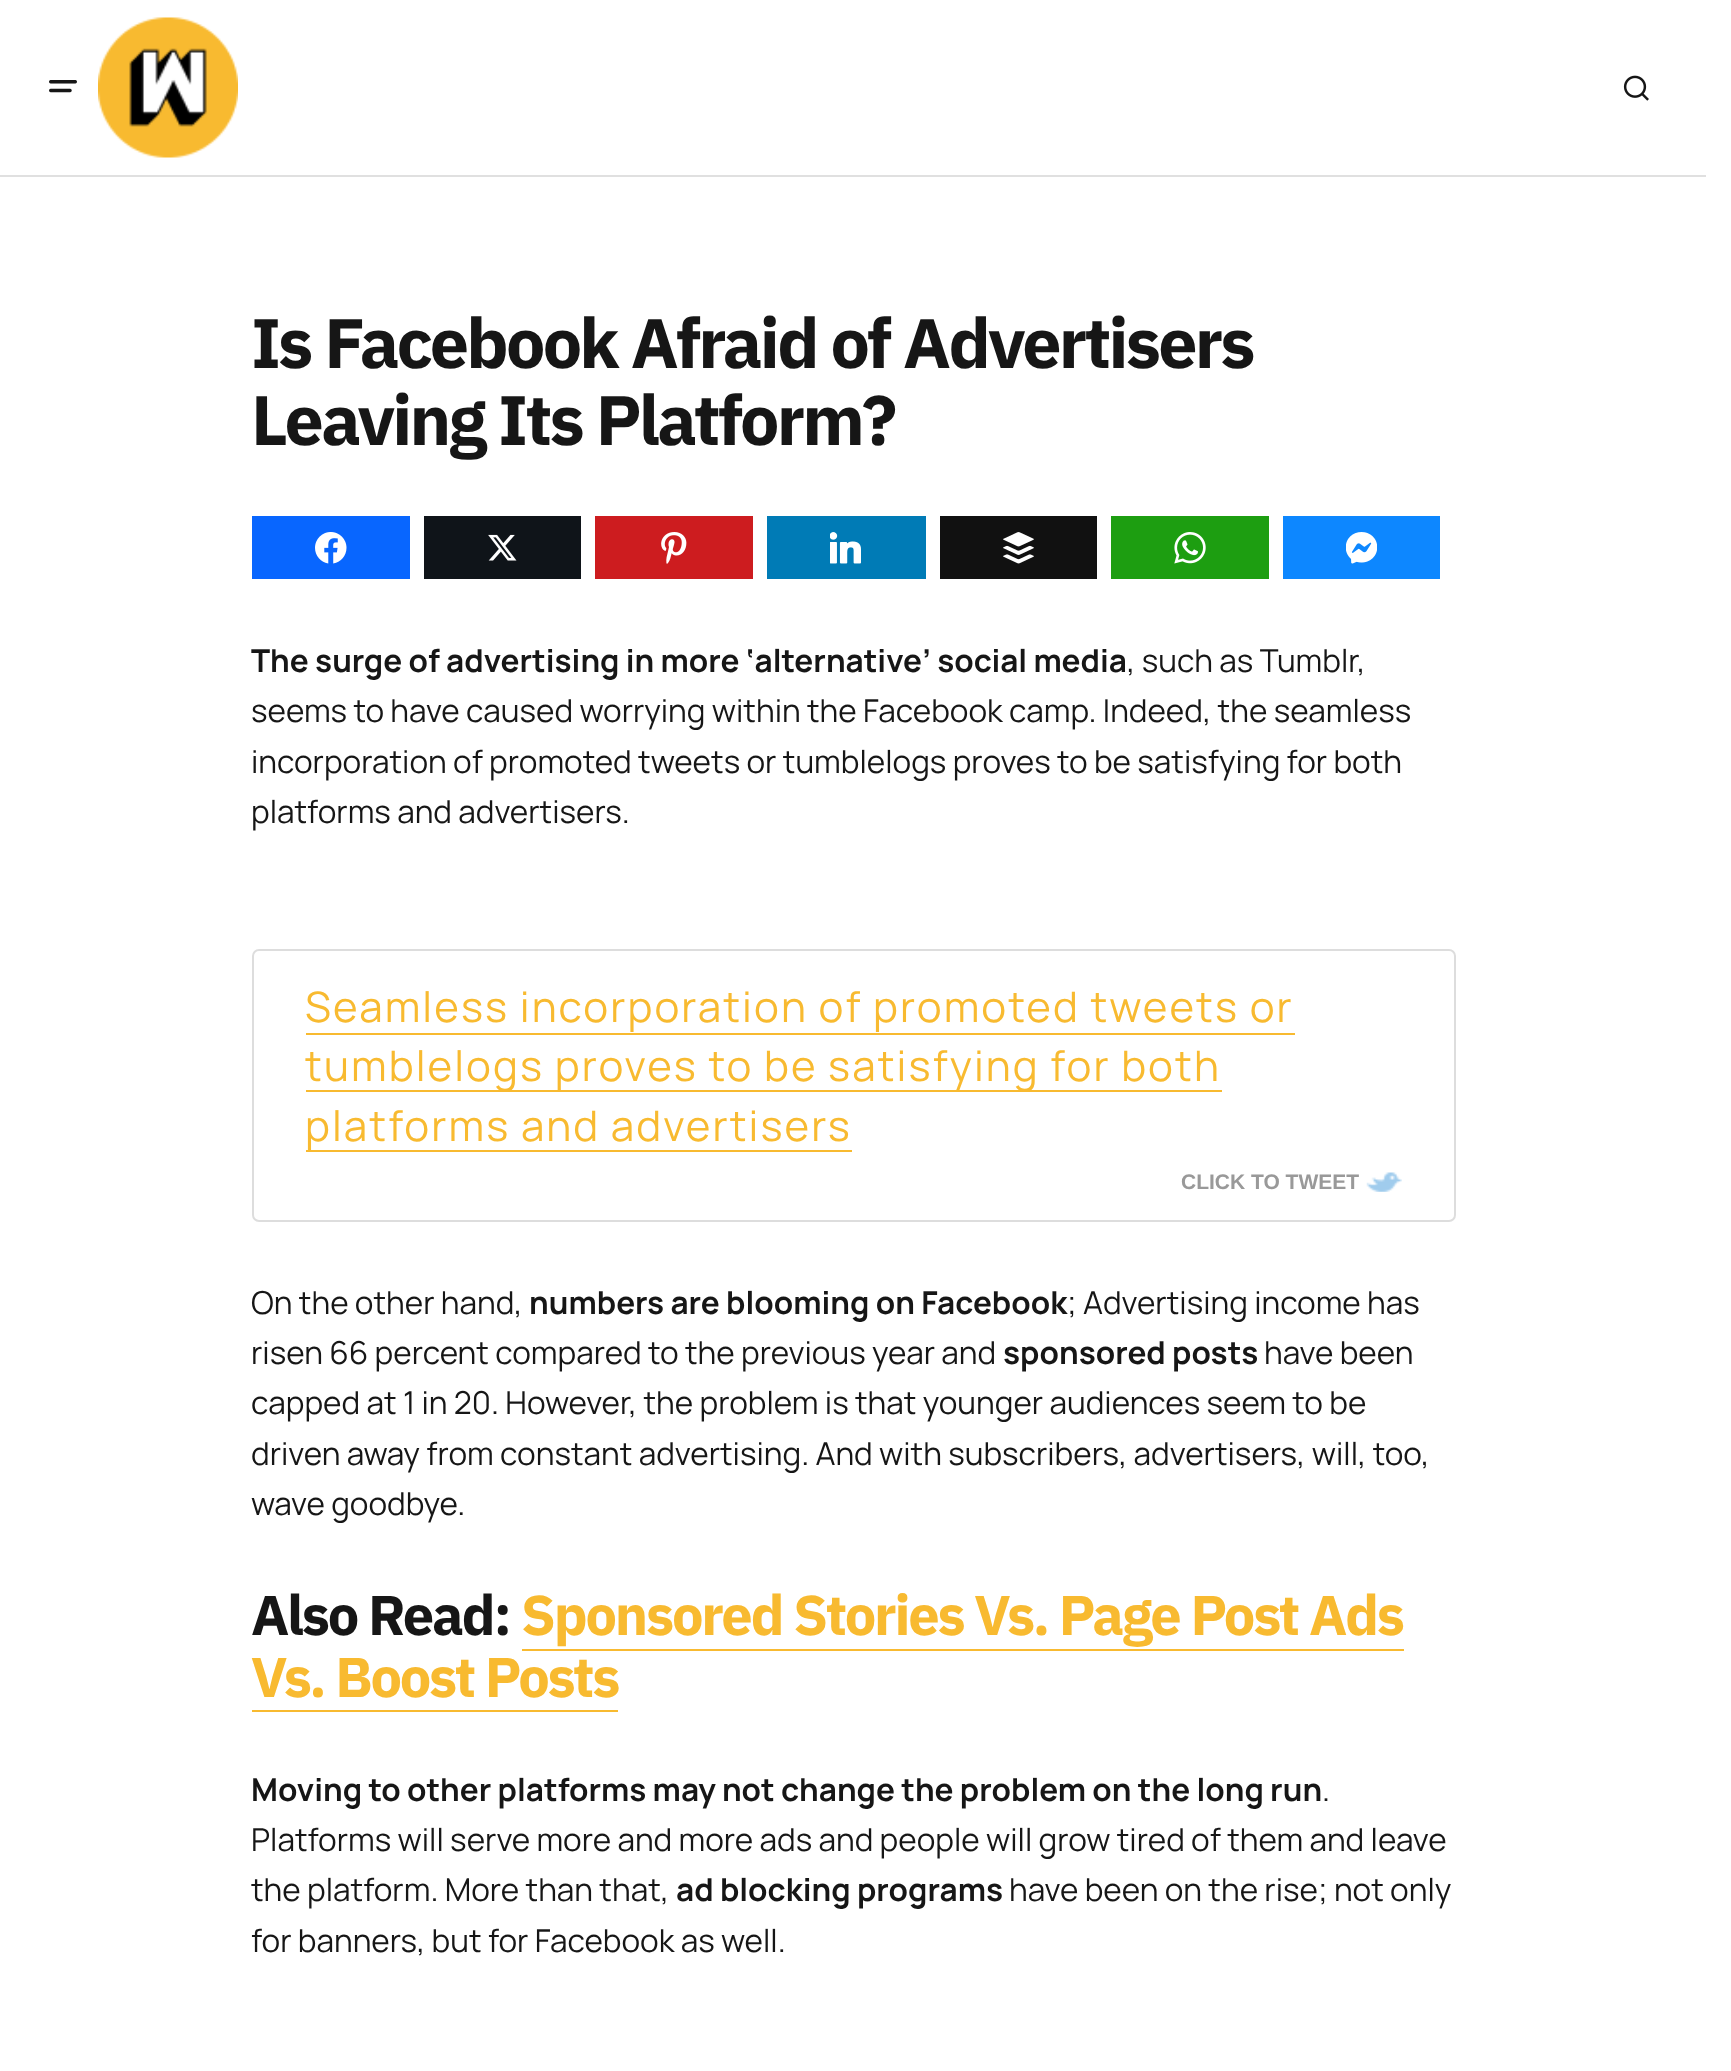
<!DOCTYPE html>
<meta charset="utf-8">
<style>body { margin: 0 } canvas { display: block }</style>
<canvas id="canvas" width="1731" height="2071"></canvas>
<img id="img1" src="images/1.png" hidden>
<img id="img2" src="images/2.png" hidden>
<img id="img3" src="images/3.png" hidden>
<img id="img4" src="images/4.png" hidden>
<img id="img5" src="images/5.png" hidden>
<img id="img6" src="images/6.png" hidden>
<img id="img7" src="images/7.png" hidden>
<img id="img8" src="images/8.png" hidden>
<img id="img9" src="images/9.png" hidden>
<img id="img10" src="images/10.png" hidden>
<img id="img11" src="images/11.png" hidden>
<script>
window.onload = function () {
    const canvas = document.getElementById('canvas');
    const context = canvas.getContext('2d');
    context.miterLimit = 4;
    context.fontKerning = 'normal';

    context.fillStyle = 'rgb(255, 255, 255)';
    context.fillRect(0, 0, 1731, 2071);
    context.drawImage(document.getElementById('img1'), 49, 80, 28, 13);
    context.drawImage(document.getElementById('img2'), 98, 17, 140, 141);
    context.drawImage(document.getElementById('img3'), 1623, 75, 26, 26);
    context.fillStyle = 'rgb(224, 224, 224)';
    context.fillRect(0, 175, 1706, 2);
    context.fillStyle = 'rgb(8, 102, 255)';
    context.fillRect(252, 516, 158, 63);
    context.drawImage(document.getElementById('img4'), 315, 532, 32, 32);
    context.fillStyle = 'rgb(15, 20, 25)';
    context.fillRect(424, 516, 157, 63);
    context.drawImage(document.getElementById('img5'), 488, 534, 29, 27);
    context.fillStyle = 'rgb(205, 28, 31)';
    context.fillRect(595, 516, 158, 63);
    context.drawImage(document.getElementById('img6'), 661, 532, 26, 32);
    context.fillStyle = 'rgb(0, 123, 182)';
    context.fillRect(767, 516, 159, 63);
    context.drawImage(document.getElementById('img7'), 830, 532, 31, 32);
    context.fillStyle = 'rgb(17, 17, 17)';
    context.fillRect(940, 516, 157, 63);
    context.drawImage(document.getElementById('img8'), 1003, 532, 31, 32);
    context.fillStyle = 'rgb(29, 158, 17)';
    context.fillRect(1111, 516, 158, 63);
    context.drawImage(document.getElementById('img9'), 1174, 532, 32, 32);
    context.fillStyle = 'rgb(13, 135, 255)';
    context.fillRect(1283, 516, 157, 63);
    context.drawImage(document.getElementById('img10'), 1346, 532, 31, 32);
    context.beginPath();
    context.roundRect(253, 950, 1202, 271, 6);
    context.strokeStyle = 'rgb(221, 221, 221)';
    context.lineWidth = 2;
    context.stroke();
    context.fillStyle = 'rgb(248, 186, 48)';
    context.fillRect(306, 1033, 989, 2);
    context.fillRect(306, 1090, 916, 2);
    context.fillRect(306, 1150, 546, 2);
    context.drawImage(document.getElementById('img11'), 1366, 1172, 36, 20);
    context.fillRect(522, 1649, 882, 2);
    context.fillRect(252, 1710, 366, 2);
    context.letterSpacing = '-2.8px';
    context.font = 'bold 70px IBM Plex Sans';
    context.fillStyle = 'rgb(22, 22, 22)';
    context.fillText('Is Facebook Afraid of Advertisers', 251, 368);
    context.fillText('Leaving Its Platform?', 251, 445);
    context.letterSpacing = '0px';
    context.font = 'bold 31.5px Manrope';
    context.fillText('The surge of advertising in more ‘alternative’ social media', 251, 672);
    context.font = '31.5px Manrope';
    context.fillText(', such as Tumblr,', 1127, 672);
    context.fillText('seems to have caused worrying within the Facebook camp. Indeed, the seamless', 251, 722);
    context.fillText('incorporation of promoted tweets or tumblelogs proves to be satisfying for both', 251, 773);
    context.fillText('platforms and advertisers.', 251, 823);
    context.letterSpacing = '2.1px';
    context.font = '42px Manrope';
    context.fillStyle = 'rgb(248, 186, 48)';
    context.fillText('Seamless incorporation of promoted tweets or', 305, 1022);
    context.fillText('tumblelogs proves to be satisfying for both', 305, 1081);
    context.fillText('platforms and advertisers', 305, 1141);
    context.letterSpacing = '0px';
    context.font = 'bold 21px Liberation Sans';
    context.fillStyle = 'rgb(153, 153, 153)';
    context.fillText('CLICK TO TWEET', 1181, 1189);
    context.font = '31.5px Manrope';
    context.fillStyle = 'rgb(22, 22, 22)';
    context.fillText('On the other hand,', 251, 1314);
    context.font = 'bold 31.5px Manrope';
    context.fillText('numbers are blooming on Facebook', 529, 1314);
    context.font = '31.5px Manrope';
    context.fillText('; Advertising income has', 1067, 1314);
    context.fillText('risen 66 percent compared to the previous year and', 251, 1364);
    context.font = 'bold 31.5px Manrope';
    context.fillText('sponsored posts', 1003, 1364);
    context.font = '31.5px Manrope';
    context.fillText('have been', 1264, 1364);
    context.fillText('capped at 1 in 20. However, the problem is that younger audiences seem to be', 251, 1414);
    context.fillText('driven away from constant advertising. And with subscribers, advertisers, will, too,', 251, 1465);
    context.fillText('wave goodbye.', 251, 1515);
    context.letterSpacing = '-2.25px';
    context.font = 'bold 56px IBM Plex Sans';
    context.fillText('Also Read:', 251, 1635);
    context.fillStyle = 'rgb(248, 186, 48)';
    context.fillText('Sponsored Stories Vs. Page Post Ads', 521, 1635);
    context.fillText('Vs. Boost Posts', 251, 1697);
    context.letterSpacing = '0px';
    context.font = 'bold 31.5px Manrope';
    context.fillStyle = 'rgb(22, 22, 22)';
    context.fillText('Moving to other platforms may not change the problem on the long run', 251, 1801);
    context.font = '31.5px Manrope';
    context.fillText('.', 1322, 1801);
    context.fillText('Platforms will serve more and more ads and people will grow tired of them and leave', 251, 1851);
    context.fillText('the platform. More than that,', 251, 1901);
    context.font = 'bold 31.5px Manrope';
    context.fillText('ad blocking programs', 676, 1901);
    context.font = '31.5px Manrope';
    context.fillText('have been on the rise; not only', 1009, 1901);
    context.fillText('for banners, but for Facebook as well.', 251, 1952);
};
</script>
